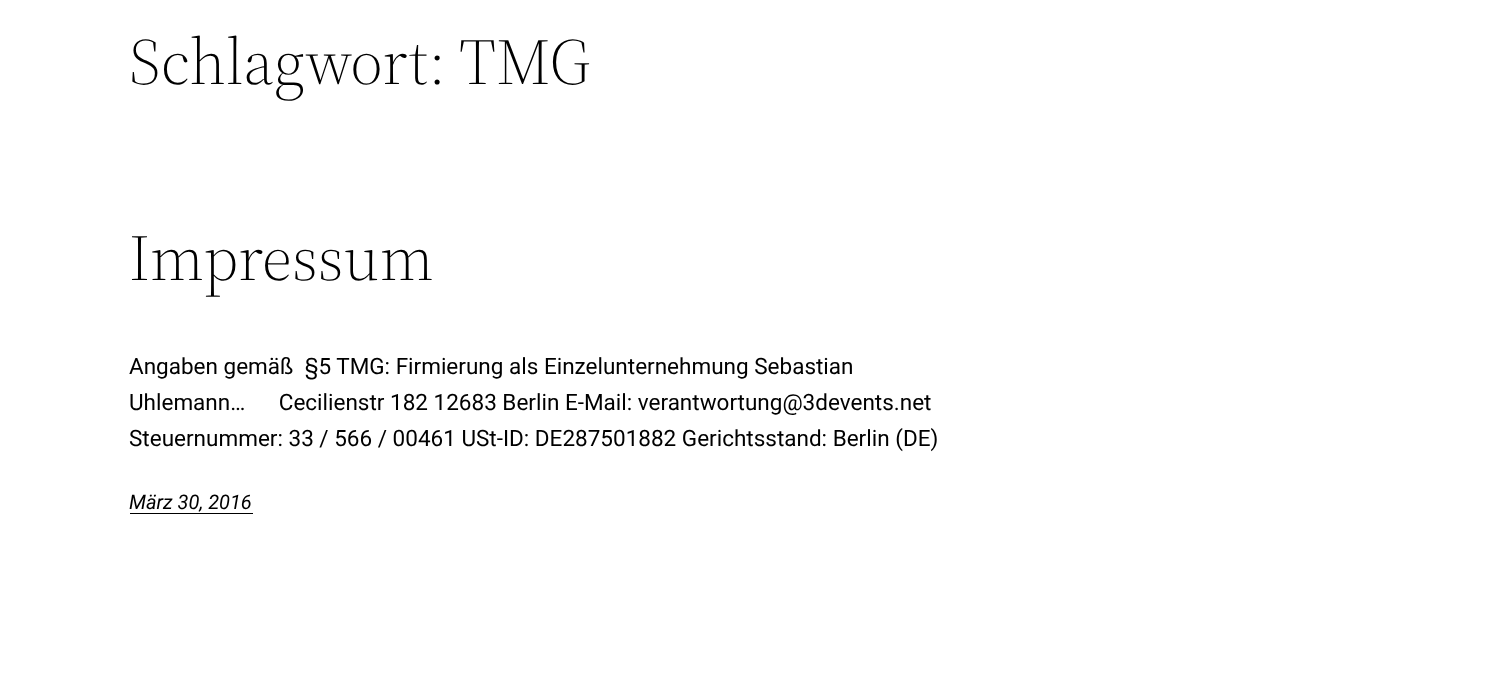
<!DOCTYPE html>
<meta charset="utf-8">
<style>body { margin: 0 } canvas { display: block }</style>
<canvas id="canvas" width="1508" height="681"></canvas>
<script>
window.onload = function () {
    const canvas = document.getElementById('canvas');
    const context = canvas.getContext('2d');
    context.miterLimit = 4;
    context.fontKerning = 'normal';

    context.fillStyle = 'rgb(255, 255, 255)';
    context.fillRect(0, 0, 1508, 681);
    context.fillStyle = 'rgb(0, 0, 0)';
    context.fillRect(130, 513, 123, 1);
    context.font = '300 65px "Source Serif 4"';
    context.fillText('Schlagwort:', 129, 84);
    context.fillText('TMG', 459, 84);
    context.fillText('Impressum', 129, 280);
    context.font = '22.5px Roboto';
    context.fillText('Angaben gemäß  §5 TMG: Firmierung als Einzelunternehmung Sebastian', 129, 374);
    context.fillText('Uhlemann…      Cecilienstr 182 12683 Berlin E-Mail: verantwortung@3devents.net', 129, 410);
    context.fillText('Steuernummer: 33 / 566 / 00461 USt-ID: DE287501882 Gerichtsstand: Berlin (DE)', 129, 446);
    context.font = 'italic 20px Roboto';
    context.fillText('März 30, 2016', 129, 509);
};
</script>
